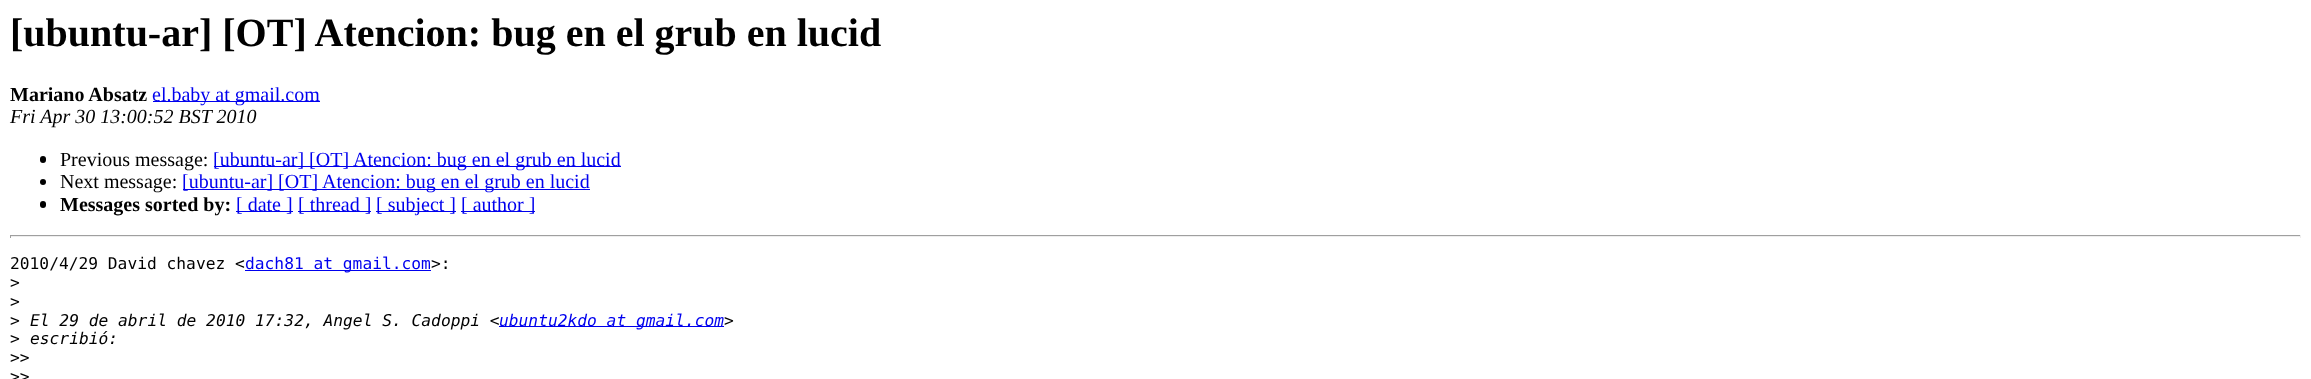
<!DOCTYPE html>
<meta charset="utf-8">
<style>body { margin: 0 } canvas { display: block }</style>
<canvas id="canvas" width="2311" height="379"></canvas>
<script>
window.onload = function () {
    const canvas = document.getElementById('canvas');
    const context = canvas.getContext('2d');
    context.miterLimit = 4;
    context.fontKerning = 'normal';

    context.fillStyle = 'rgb(255, 255, 255)';
    context.fillRect(0, 0, 2311, 379);
    context.fillStyle = 'rgb(0, 0, 238)';
    context.fillRect(153, 101, 167, 1);
    context.fillStyle = 'rgb(0, 0, 0)';
    context.beginPath();
    context.roundRect(40, 156, 6, 7, 3);
    context.fill();
    context.fillStyle = 'rgb(0, 0, 238)';
    context.fillRect(214, 166, 407, 1);
    context.fillStyle = 'rgb(0, 0, 0)';
    context.beginPath();
    context.arc(43, 182, 3, 0, 2 * Math.PI);
    context.fill();
    context.fillStyle = 'rgb(0, 0, 238)';
    context.fillRect(183, 189, 407, 1);
    context.fillStyle = 'rgb(0, 0, 0)';
    context.beginPath();
    context.roundRect(40, 201, 6, 7, 3);
    context.fill();
    context.fillStyle = 'rgb(0, 0, 238)';
    context.fillRect(236, 211, 57, 1);
    context.fillRect(298, 211, 73, 1);
    context.fillRect(376, 211, 80, 1);
    context.fillRect(461, 211, 74, 1);
    context.fillStyle = 'rgb(159, 159, 159)';
    context.fillRect(10, 235, 2291, 1);
    context.fillStyle = 'rgb(238, 238, 238)';
    context.fillRect(2300, 235, 1, 3);
    context.fillRect(10, 236, 2291, 1);
    context.fillStyle = 'rgb(159, 159, 159)';
    context.fillRect(10, 235, 1, 3);
    context.fillStyle = 'rgb(0, 0, 238)';
    context.fillRect(245, 270, 186, 1);
    context.fillRect(499, 326, 225, 1);
    context.font = 'bold 40px Liberation Serif';
    context.fillStyle = 'rgb(0, 0, 0)';
    context.fillText('[ubuntu-ar] [OT] Atencion: bug en el grub en lucid', 10, 46);
    context.font = 'bold 20px Liberation Serif';
    context.fillText('Mariano Absatz', 10, 101);
    context.font = '20px Liberation Serif';
    context.fillStyle = 'rgb(0, 0, 238)';
    context.fillText('el.baby at gmail.com', 152, 101);
    context.font = 'italic 20px Liberation Serif';
    context.fillStyle = 'rgb(0, 0, 0)';
    context.fillText('Fri Apr 30 13:00:52 BST 2010', 10, 123);
    context.font = '20px Liberation Serif';
    context.fillText('Previous message:', 60, 166);
    context.fillStyle = 'rgb(0, 0, 238)';
    context.fillText('[ubuntu-ar] [OT] Atencion: bug en el grub en lucid', 213, 166);
    context.fillStyle = 'rgb(0, 0, 0)';
    context.fillText('Next message:', 60, 188);
    context.fillStyle = 'rgb(0, 0, 238)';
    context.fillText('[ubuntu-ar] [OT] Atencion: bug en el grub en lucid', 182, 188);
    context.font = 'bold 20px Liberation Serif';
    context.fillStyle = 'rgb(0, 0, 0)';
    context.fillText('Messages sorted by:', 60, 211);
    context.font = '20px Liberation Serif';
    context.fillStyle = 'rgb(0, 0, 238)';
    context.fillText('[ date ]', 236, 211);
    context.fillText('[ thread ]', 298, 211);
    context.fillText('[ subject ]', 376, 211);
    context.fillText('[ author ]', 461, 211);
    context.font = '16.25px DejaVu Sans Mono';
    context.fillStyle = 'rgb(0, 0, 0)';
    context.fillText('2010/4/29 David chavez <', 10, 269);
    context.fillStyle = 'rgb(0, 0, 238)';
    context.fillText('dach81 at gmail.com', 245, 269);
    context.fillStyle = 'rgb(0, 0, 0)';
    context.fillText('>:', 431, 269);
    context.fillText('>', 10, 288);
    context.fillText('>', 10, 307);
    context.fillText('>', 10, 326);
    context.font = 'italic 16.25px DejaVu Sans Mono';
    context.fillText('El 29 de abril de 2010 17:32, Angel S. Cadoppi <', 30, 326);
    context.fillStyle = 'rgb(0, 0, 238)';
    context.fillText('ubuntu2kdo at gmail.com', 499, 326);
    context.fillStyle = 'rgb(0, 0, 0)';
    context.fillText('>', 724, 326);
    context.font = '16.25px DejaVu Sans Mono';
    context.fillText('>', 10, 344);
    context.font = 'italic 16.25px DejaVu Sans Mono';
    context.fillText('escribió:', 30, 344);
    context.font = '16.25px DejaVu Sans Mono';
    context.fillText('>>', 10, 363);
    context.fillText('>>', 10, 382);
};
</script>
